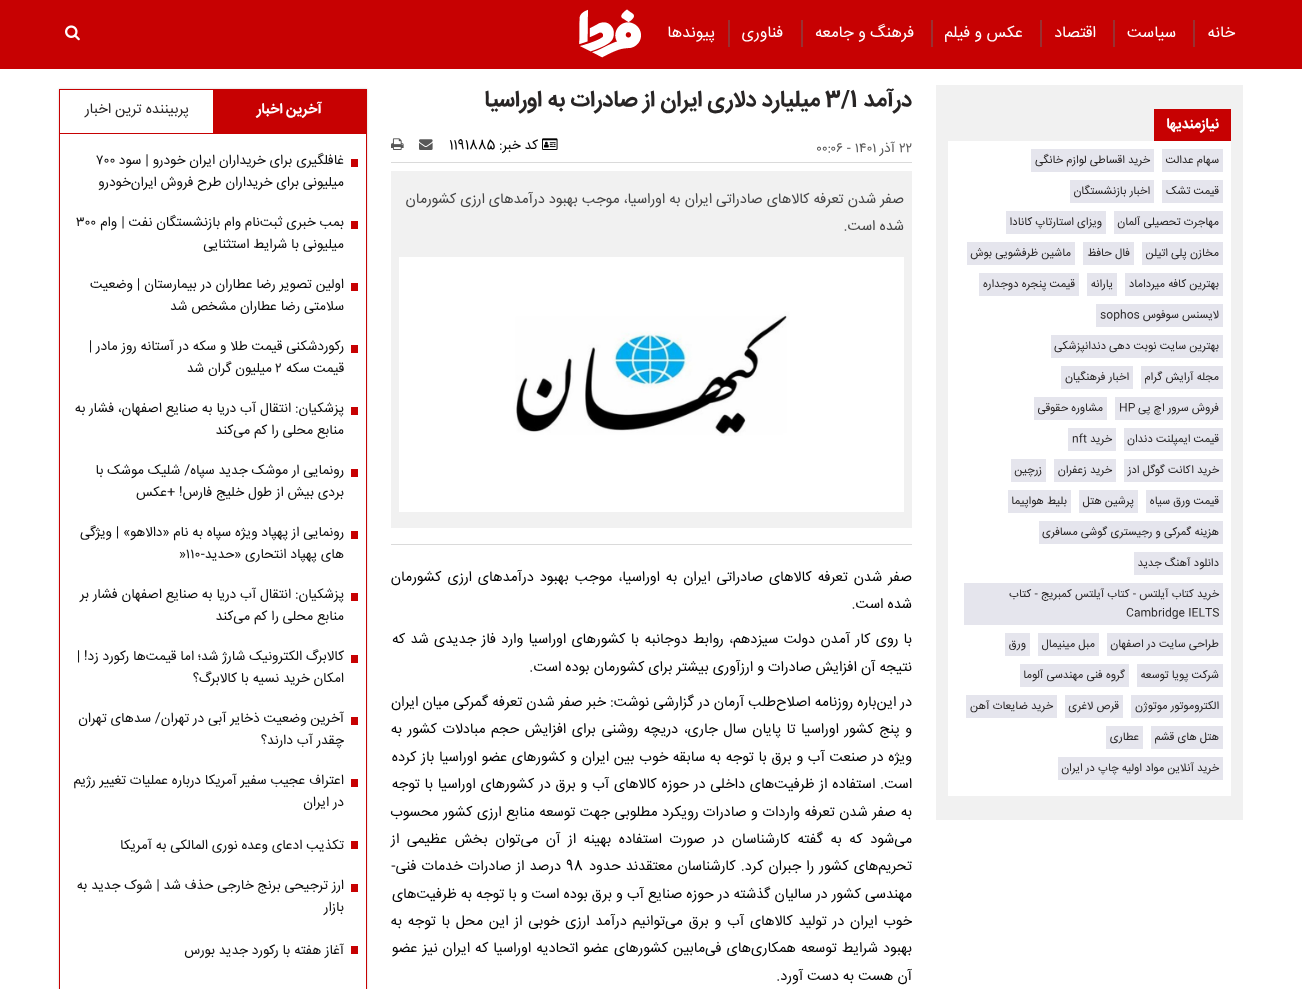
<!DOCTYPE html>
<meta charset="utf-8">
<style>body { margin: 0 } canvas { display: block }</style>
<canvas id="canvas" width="1302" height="989"></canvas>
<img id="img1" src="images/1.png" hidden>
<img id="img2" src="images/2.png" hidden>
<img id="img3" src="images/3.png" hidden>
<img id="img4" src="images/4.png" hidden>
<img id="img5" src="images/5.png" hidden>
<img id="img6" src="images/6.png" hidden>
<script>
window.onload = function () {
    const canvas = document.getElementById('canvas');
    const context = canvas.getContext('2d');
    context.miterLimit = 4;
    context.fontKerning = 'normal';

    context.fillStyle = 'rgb(255, 255, 255)';
    context.fillRect(0, 0, 1302, 989);
    context.fillStyle = 'rgb(199, 1, 2)';
    context.fillRect(0, 0, 1302, 69);
    context.fillStyle = 'rgb(153, 49, 50)';
    context.fillRect(1193, 20, 2, 27);
    context.fillRect(1113, 20, 2, 27);
    context.fillRect(1040, 20, 2, 27);
    context.fillRect(931, 20, 2, 27);
    context.fillRect(801, 20, 2, 27);
    context.fillRect(728, 20, 2, 27);
    context.drawImage(document.getElementById('img1'), 579, 9, 62, 49);
    context.drawImage(document.getElementById('img2'), 65, 25, 15, 16);
    context.fillStyle = 'rgb(241, 241, 241)';
    context.fillRect(936, 85, 307, 735);
    context.fillStyle = 'rgb(199, 1, 2)';
    context.fillRect(1154, 109, 77, 32);
    context.fillStyle = 'rgb(255, 255, 255)';
    context.fillRect(948, 141, 283, 655);
    context.fillStyle = 'rgb(229, 229, 237)';
    context.fillRect(1162, 149, 61, 23);
    context.fillRect(1031, 149, 123, 23);
    context.fillRect(1162, 180, 61, 23);
    context.fillRect(1070, 180, 84, 23);
    context.fillRect(1114, 211, 109, 23);
    context.fillRect(1006, 211, 100, 23);
    context.fillRect(1142, 242, 81, 23);
    context.fillRect(1083, 242, 51, 23);
    context.fillRect(967, 242, 108, 23);
    context.fillRect(1125, 273, 98, 23);
    context.fillRect(1087, 273, 30, 23);
    context.fillRect(979, 273, 100, 23);
    context.fillRect(1096, 304, 127, 23);
    context.fillRect(1051, 335, 172, 23);
    context.fillRect(1141, 366, 82, 23);
    context.fillRect(1061, 366, 72, 23);
    context.fillRect(1115, 397, 108, 23);
    context.fillRect(1034, 397, 73, 23);
    context.fillRect(1124, 428, 99, 23);
    context.fillRect(1068, 428, 48, 23);
    context.fillRect(1124, 459, 99, 23);
    context.fillRect(1054, 459, 62, 23);
    context.fillRect(1011, 459, 35, 23);
    context.fillRect(1146, 490, 77, 23);
    context.fillRect(1079, 490, 59, 23);
    context.fillRect(1008, 490, 63, 23);
    context.fillRect(1039, 521, 184, 23);
    context.fillRect(1134, 552, 89, 23);
    context.fillRect(964, 583, 259, 42);
    context.fillRect(1107, 633, 116, 23);
    context.fillRect(1038, 633, 61, 23);
    context.fillRect(1005, 633, 25, 23);
    context.fillRect(1137, 664, 86, 23);
    context.fillRect(1020, 664, 109, 23);
    context.fillRect(1131, 695, 92, 23);
    context.fillRect(1065, 695, 58, 23);
    context.fillRect(966, 695, 91, 23);
    context.fillRect(1151, 726, 72, 23);
    context.fillRect(1106, 726, 37, 23);
    context.fillRect(1058, 757, 165, 23);
    context.fillStyle = 'rgb(218, 218, 218)';
    context.fillRect(391, 162, 521, 1);
    context.drawImage(document.getElementById('img3'), 542, 138, 16, 12);
    context.drawImage(document.getElementById('img4'), 419, 139, 14, 11);
    context.drawImage(document.getElementById('img5'), 391, 138, 13, 12);
    context.fillRect(391, 544, 521, 1);
    context.fillStyle = 'rgb(241, 241, 241)';
    context.fillRect(391, 171, 521, 357);
    context.drawImage(document.getElementById('img6'), 399, 257, 505, 255);
    context.save();
    context.beginPath();
    context.moveTo(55, 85);
    context.lineTo(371, 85);
    context.lineTo(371, 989);
    context.lineTo(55, 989);
    context.closePath();
    context.moveTo(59, 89);
    context.lineTo(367, 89);
    context.lineTo(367, 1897);
    context.lineTo(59, 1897);
    context.closePath();
    context.clip('evenodd');
    context.fillStyle = 'rgba(0, 0, 0, 0.2)';
    context.filter = 'blur(1px)';
    context.beginPath();
    context.rect(59, 89, 308, 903);
    context.fill();
    context.filter = 'none';
    context.restore();
    context.strokeStyle = 'rgb(199, 1, 2)';
    context.strokeRect(59.5, 89.5, 307, 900);
    context.fillStyle = 'rgb(199, 1, 2)';
    context.fillRect(60, 133, 306, 1);
    context.fillRect(213, 90, 153, 43);
    context.fillRect(351, 159, 7, 8);
    context.fillRect(351, 221, 7, 8);
    context.fillRect(351, 283, 7, 8);
    context.fillRect(351, 345, 7, 8);
    context.fillRect(351, 407, 7, 8);
    context.fillRect(351, 469, 7, 8);
    context.fillRect(351, 531, 7, 8);
    context.fillRect(351, 593, 7, 8);
    context.fillRect(351, 655, 7, 8);
    context.fillRect(351, 717, 7, 8);
    context.fillRect(351, 779, 7, 8);
    context.fillRect(351, 841, 7, 8);
    context.fillRect(351, 884, 7, 8);
    context.fillRect(351, 946, 7, 8);
    context.direction = 'rtl';
    context.font = '16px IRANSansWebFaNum';
    context.fillStyle = 'rgb(255, 255, 255)';
    context.fillText('خانه', 1235, 37);
    context.fillText('سیاست', 1176, 37);
    context.fillText('اقتصاد', 1096, 37);
    context.fillText('عکس و فیلم', 1023, 37);
    context.fillText('فرهنگ و جامعه', 914, 37);
    context.fillText('فناوری', 783, 37);
    context.fillText('پیوند‌ها', 715, 37);
    context.font = 'bold 14.4px IRANSansWebFaNum';
    context.fillText('نیازمندیها', 1219, 128);
    context.font = '11.25px IRANSansWebFaNum';
    context.fillStyle = 'rgb(40, 37, 37)';
    context.fillText('سهام عدالت', 1219, 163);
    context.fillText('خرید اقساطی لوازم خانگی', 1150, 163);
    context.fillText('قیمت تشک', 1219, 194);
    context.fillText('اخبار بازنشستگان', 1150, 194);
    context.fillText('مهاجرت تحصیلی آلمان', 1219, 225);
    context.fillText('ویزای استارتاپ کانادا', 1102, 225);
    context.fillText('مخازن پلی اتیلن', 1219, 256);
    context.fillText('فال حافظ', 1130, 256);
    context.fillText('ماشین ظرفشویی بوش', 1071, 256);
    context.fillText('بهترین کافه میرداماد', 1219, 287);
    context.fillText('یارانه', 1113, 287);
    context.fillText('قیمت پنجره دوجداره', 1075, 287);
    context.fillText('لایسنس سوفوس', 1219, 318);
    context.direction = 'ltr';
    context.fillText('sophos', 1100, 318);
    context.direction = 'rtl';
    context.fillText('بهترین سایت نوبت دهی دندانپزشکی', 1219, 349);
    context.fillText('مجله آرایش گرام', 1219, 380);
    context.fillText('اخبار فرهنگیان', 1129, 380);
    context.fillText('فروش سرور اچ پی', 1219, 411);
    context.direction = 'ltr';
    context.fillText('HP', 1119, 411);
    context.direction = 'rtl';
    context.fillText('مشاوره حقوقی', 1103, 411);
    context.fillText('قیمت ایمپلنت دندان', 1219, 442);
    context.fillText('خرید', 1112, 442);
    context.direction = 'ltr';
    context.fillText('nft', 1072, 442);
    context.direction = 'rtl';
    context.fillText('خرید اکانت گوگل ادز', 1219, 473);
    context.fillText('خرید زعفران', 1112, 473);
    context.fillText('زرچین', 1042, 473);
    context.fillText('قیمت ورق سیاه', 1219, 504);
    context.fillText('پرشین هتل', 1134, 504);
    context.fillText('بلیط هواپیما', 1067, 504);
    context.fillText('هزینه گمرکی و رجیستری گوشی مسافری', 1219, 535);
    context.fillText('دانلود آهنگ جدید', 1219, 566);
    context.fillText('خرید کتاب آیلتس - کتاب آیلتس کمبریج - کتاب', 1219, 597);
    context.direction = 'ltr';
    context.fillText('Cambridge IELTS', 1126, 616);
    context.direction = 'rtl';
    context.fillText('طراحی سایت در اصفهان', 1219, 647);
    context.fillText('مبل مینیمال', 1095, 647);
    context.fillText('ورق', 1026, 647);
    context.fillText('شرکت پویا توسعه', 1219, 678);
    context.fillText('گروه فنی مهندسی آلوما', 1125, 678);
    context.fillText('الکتروموتور موتوژن', 1219, 709);
    context.fillText('قرص لاغری', 1119, 709);
    context.fillText('خرید ضایعات آهن', 1053, 709);
    context.fillText('هتل های قشم', 1219, 740);
    context.fillText('عطاری', 1139, 740);
    context.fillText('خرید آنلاین مواد اولیه چاپ در ایران', 1219, 771);
    context.font = 'bold 22.4px IRANSansWebFaNum';
    context.fillText('درآمد', 912, 106);
    context.direction = 'ltr';
    context.fillText('3/1', 825, 106);
    context.direction = 'rtl';
    context.fillText('میلیارد دلاری ایران از صادرات به اوراسیا', 820, 106);
    context.direction = 'ltr';
    context.font = '13.6px IRANSansWebFaNum';
    context.fillStyle = 'rgb(87, 87, 87)';
    context.fillText('۲۲', 899, 152);
    context.direction = 'rtl';
    context.fillText('آذر', 895, 152);
    context.direction = 'ltr';
    context.fillText('۰۰:۰۶ - ۱۴۰۱', 816, 152);
    context.direction = 'rtl';
    context.fillStyle = 'rgb(0, 0, 0)';
    context.fillText('کد خبر:', 538, 149);
    context.direction = 'ltr';
    context.fillText('1191885', 449, 149);
    context.direction = 'rtl';
    context.font = '14.4px IRANSansWebFaNum';
    context.fillStyle = 'rgb(68, 68, 68)';
    context.fillText('صفر شدن تعرفه کالاهای صادراتی ایران به اوراسیا، موجب بهبود درآمدهای ارزی کشورمان', 904, 203);
    context.fillText('شده است.', 904, 230);
    context.wordSpacing = '1.9px';
    context.fillStyle = 'rgb(0, 0, 0)';
    context.fillText('صفر شدن تعرفه کالاهای صادراتی ایران به اوراسیا، موجب بهبود درآمدهای ارزی کشورمان', 912, 581);
    context.wordSpacing = '0px';
    context.fillText('شده است.', 912, 608);
    context.wordSpacing = '1.25px';
    context.fillText('با روی کار آمدن دولت سیزدهم، روابط دوجانبه با کشورهای اوراسیا وارد فاز جدیدی شد که', 912, 643);
    context.wordSpacing = '0px';
    context.fillText('نتیجه آن افزایش صادرات و ارزآوری بیشتر برای کشورمان بوده است.', 912, 671);
    context.fillText('در این‌باره روزنامه اصلاح‌طلب آرمان در گزارشی نوشت: خبر صفر شدن تعرفه گمرکی میان ایران', 912, 706);
    context.wordSpacing = '1.5px';
    context.fillText('و پنج کشور اوراسیا تا پایان سال جاری، دریچه روشنی برای افزایش حجم مبادلات کشور به', 912, 733);
    context.wordSpacing = '0.6px';
    context.fillText('ویژه در صنعت آب و برق با توجه به سابقه خوب بین ایران و کشورهای عضو اوراسیا باز کرده', 912, 761);
    context.wordSpacing = '0.75px';
    context.fillText('است. استفاده از ظرفیت‌های داخلی در حوزه کالاهای آب و برق در کشورهای اوراسیا با توجه', 912, 788);
    context.wordSpacing = '0.5px';
    context.fillText('به صفر شدن تعرفه واردات و صادرات رویکرد مطلوبی جهت توسعه منابع ارزی کشور محسوب', 912, 816);
    context.wordSpacing = '3.5px';
    context.fillText('می‌شود که به گفته کارشناسان در صورت استفاده بهینه از آن می‌توان بخش عظیمی از', 912, 843);
    context.wordSpacing = '1px';
    context.fillText('تحریم‌های کشور را جبران کرد. کارشناسان معتقدند حدود', 912, 870);
    context.wordSpacing = '0px';
    context.direction = 'ltr';
    context.fillText('98', 566, 870);
    context.wordSpacing = '1px';
    context.direction = 'rtl';
    context.fillText('درصد از صادرات خدمات فنی-', 561, 870);
    context.wordSpacing = '0px';
    context.fillText('مهندسی کشور در سالیان گذشته در حوزه صنایع آب و برق بوده است و با توجه به ظرفیت‌های', 912, 898);
    context.wordSpacing = '1.7px';
    context.fillText('خوب ایران در تولید کالاهای آب و برق می‌توانیم درآمد ارزی خوبی از این محل با توجه به', 912, 925);
    context.wordSpacing = '1px';
    context.fillText('بهبود شرایط توسعه همکاری‌های فی‌مابین کشورهای عضو اتحادیه اوراسیا که ایران نیز عضو', 912, 952);
    context.wordSpacing = '0px';
    context.fillText('آن هست به دست آورد.', 912, 980);
    context.font = 'bold 14.4px IRANSansWebFaNum';
    context.fillStyle = 'rgb(255, 255, 255)';
    context.fillText('آخرین اخبار', 322, 113);
    context.font = '14.4px IRANSansWebFaNum';
    context.fillStyle = 'rgb(40, 37, 37)';
    context.fillText('پربیننده ترین اخبار', 189, 113);
    context.font = '13.6px IRANSansWebFaNum';
    context.fillStyle = 'rgb(12, 12, 12)';
    context.fillText('غافلگیری برای خریداران ایران خودرو | سود', 344, 164);
    context.direction = 'ltr';
    context.fillText('۷۰۰', 97, 164);
    context.direction = 'rtl';
    context.fillText('میلیونی برای خریداران طرح فروش ایران‌خودرو', 344, 186);
    context.fillText('بمب خبری ثبت‌نام وام بازنشستگان نفت |', 344, 226);
    context.fillText('وام', 117, 226);
    context.direction = 'ltr';
    context.fillText('۳۰۰', 76, 226);
    context.direction = 'rtl';
    context.fillText('میلیونی با شرایط استثنایی', 344, 248);
    context.fillText('اولین تصویر رضا عطاران در بیمارستان | وضعیت', 344, 288);
    context.fillText('سلامتی رضا عطاران مشخص شد', 344, 310);
    context.fillText('رکوردشکنی قیمت طلا و سکه در آستانه روز مادر |', 344, 350);
    context.fillText('قیمت سکه', 344, 372);
    context.direction = 'ltr';
    context.fillText('۲', 275, 372);
    context.direction = 'rtl';
    context.fillText('میلیون گران شد', 272, 372);
    context.fillText('پزشکیان: انتقال آب دریا به صنایع اصفهان، فشار به', 344, 412);
    context.fillText('منابع محلی را کم می‌کند', 344, 434);
    context.fillText('رونمایی ار موشک جدید سپاه/ شلیک موشک با', 344, 474);
    context.fillText('بردی بیش از طول خلیج فارس! +عکس', 344, 496);
    context.fillText('رونمایی از پهپاد ویژه سپاه به نام «دالاهو» | ویژگی', 344, 536);
    context.fillText('های پهپاد انتحاری «حدید-', 344, 558);
    context.direction = 'ltr';
    context.fillText('»۱۱۰', 179, 558);
    context.direction = 'rtl';
    context.fillText('پزشکیان: انتقال آب دریا به صنایع اصفهان فشار بر', 344, 598);
    context.fillText('منابع محلی را کم می‌کند', 344, 620);
    context.fillText('کالابرگ الکترونیک شارژ شد؛ اما قیمت‌ها رکورد زد! |', 344, 660);
    context.fillText('امکان خرید نسیه با کالابرگ؟', 344, 682);
    context.fillText('آخرین وضعیت ذخایر آبی در تهران/ سدهای تهران', 344, 722);
    context.fillText('چقدر آب دارند؟', 344, 744);
    context.fillText('اعتراف عجیب سفیر آمریکا درباره عملیات تغییر رژیم', 344, 784);
    context.fillText('در ایران', 344, 806);
    context.fillText('تکذیب ادعای وعده نوری المالکی به آمریکا', 344, 849);
    context.fillText('ارز ترجیحی برنج خارجی حذف شد | شوک جدید به', 344, 889);
    context.fillText('بازار', 344, 911);
    context.fillText('آغاز هفته با رکورد جدید بورس', 344, 954);
};
</script>
